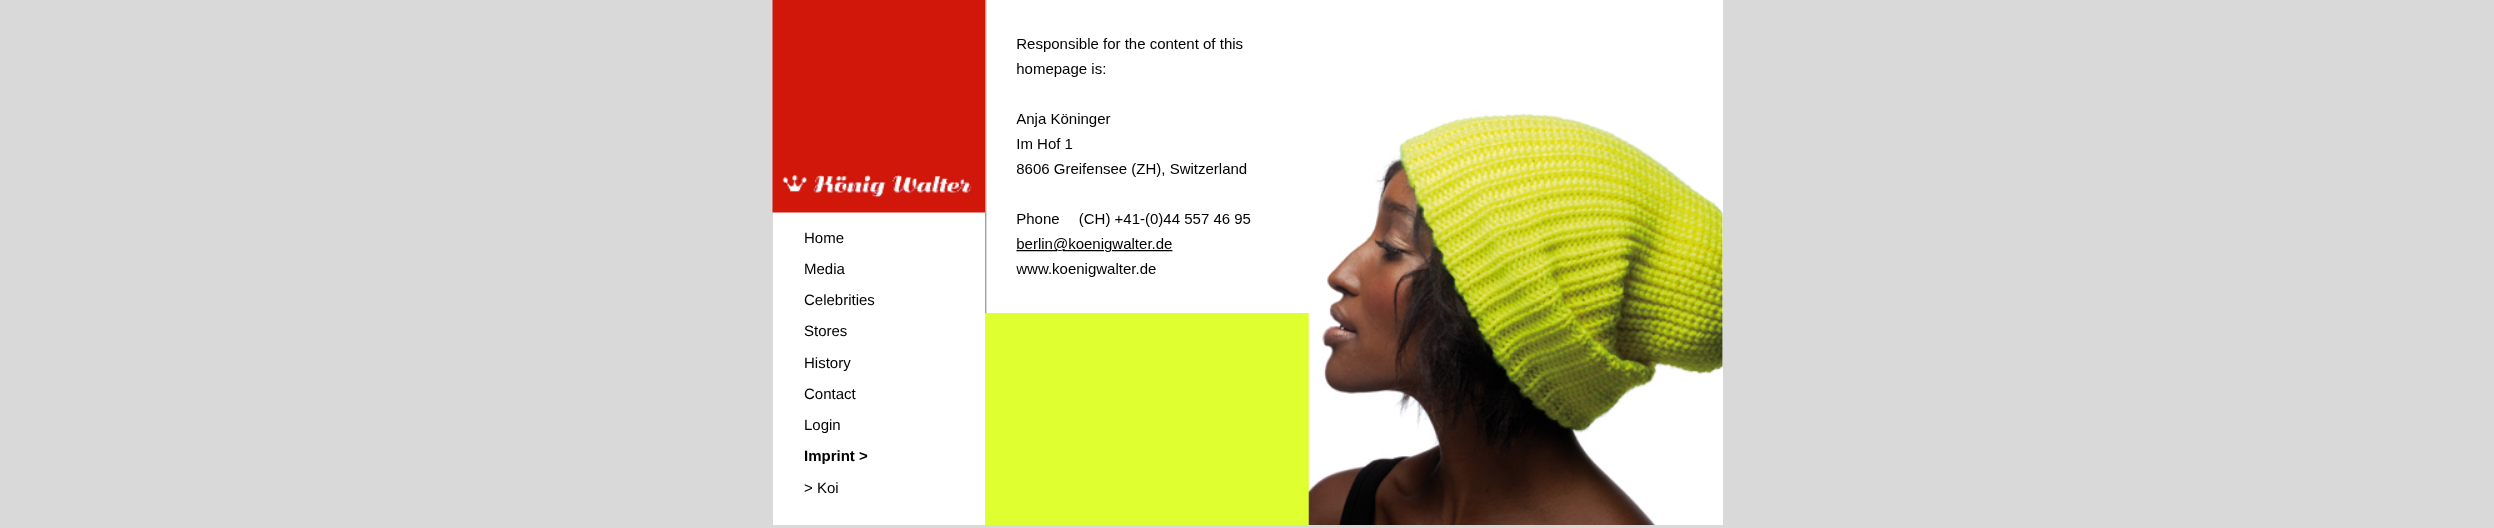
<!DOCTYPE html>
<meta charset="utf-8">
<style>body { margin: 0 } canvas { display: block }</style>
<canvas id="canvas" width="2494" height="528"></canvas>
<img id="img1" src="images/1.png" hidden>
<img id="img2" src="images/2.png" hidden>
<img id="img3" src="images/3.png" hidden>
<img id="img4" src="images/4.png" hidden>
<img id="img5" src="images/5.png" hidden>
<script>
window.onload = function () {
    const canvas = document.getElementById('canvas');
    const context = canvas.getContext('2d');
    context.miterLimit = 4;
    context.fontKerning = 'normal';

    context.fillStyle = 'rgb(217, 217, 217)';
    context.fillRect(0, 0, 2494, 528);
    context.fillStyle = 'rgb(255, 255, 255)';
    context.fillRect(773, 0, 950, 525);
    context.drawImage(document.getElementById('img1'), 772, 0, 213, 213);
    context.drawImage(document.getElementById('img2'), 985, 0, 2, 313);
    context.drawImage(document.getElementById('img3'), 986, 0, 1, 313);
    context.drawImage(document.getElementById('img4'), 1016, 38, 235, 239);
    context.fillStyle = 'rgb(223, 255, 49)';
    context.fillRect(985, 313, 324, 212);
    context.drawImage(document.getElementById('img5'), 1308, 110, 415, 415);
    context.font = '15px Liberation Sans';
    context.fillStyle = 'rgb(0, 0, 0)';
    context.fillText('Home', 804, 243);
    context.fillText('Media', 804, 274);
    context.fillText('Celebrities', 804, 305);
    context.fillText('Stores', 804, 336);
    context.fillText('History', 804, 368);
    context.fillText('Contact', 804, 399);
    context.fillText('Login', 804, 430);
    context.font = 'bold 15px Liberation Sans';
    context.fillText('Imprint >', 804, 461);
    context.font = '15px Liberation Sans';
    context.fillText('> Koi', 804, 493);
};
</script>
